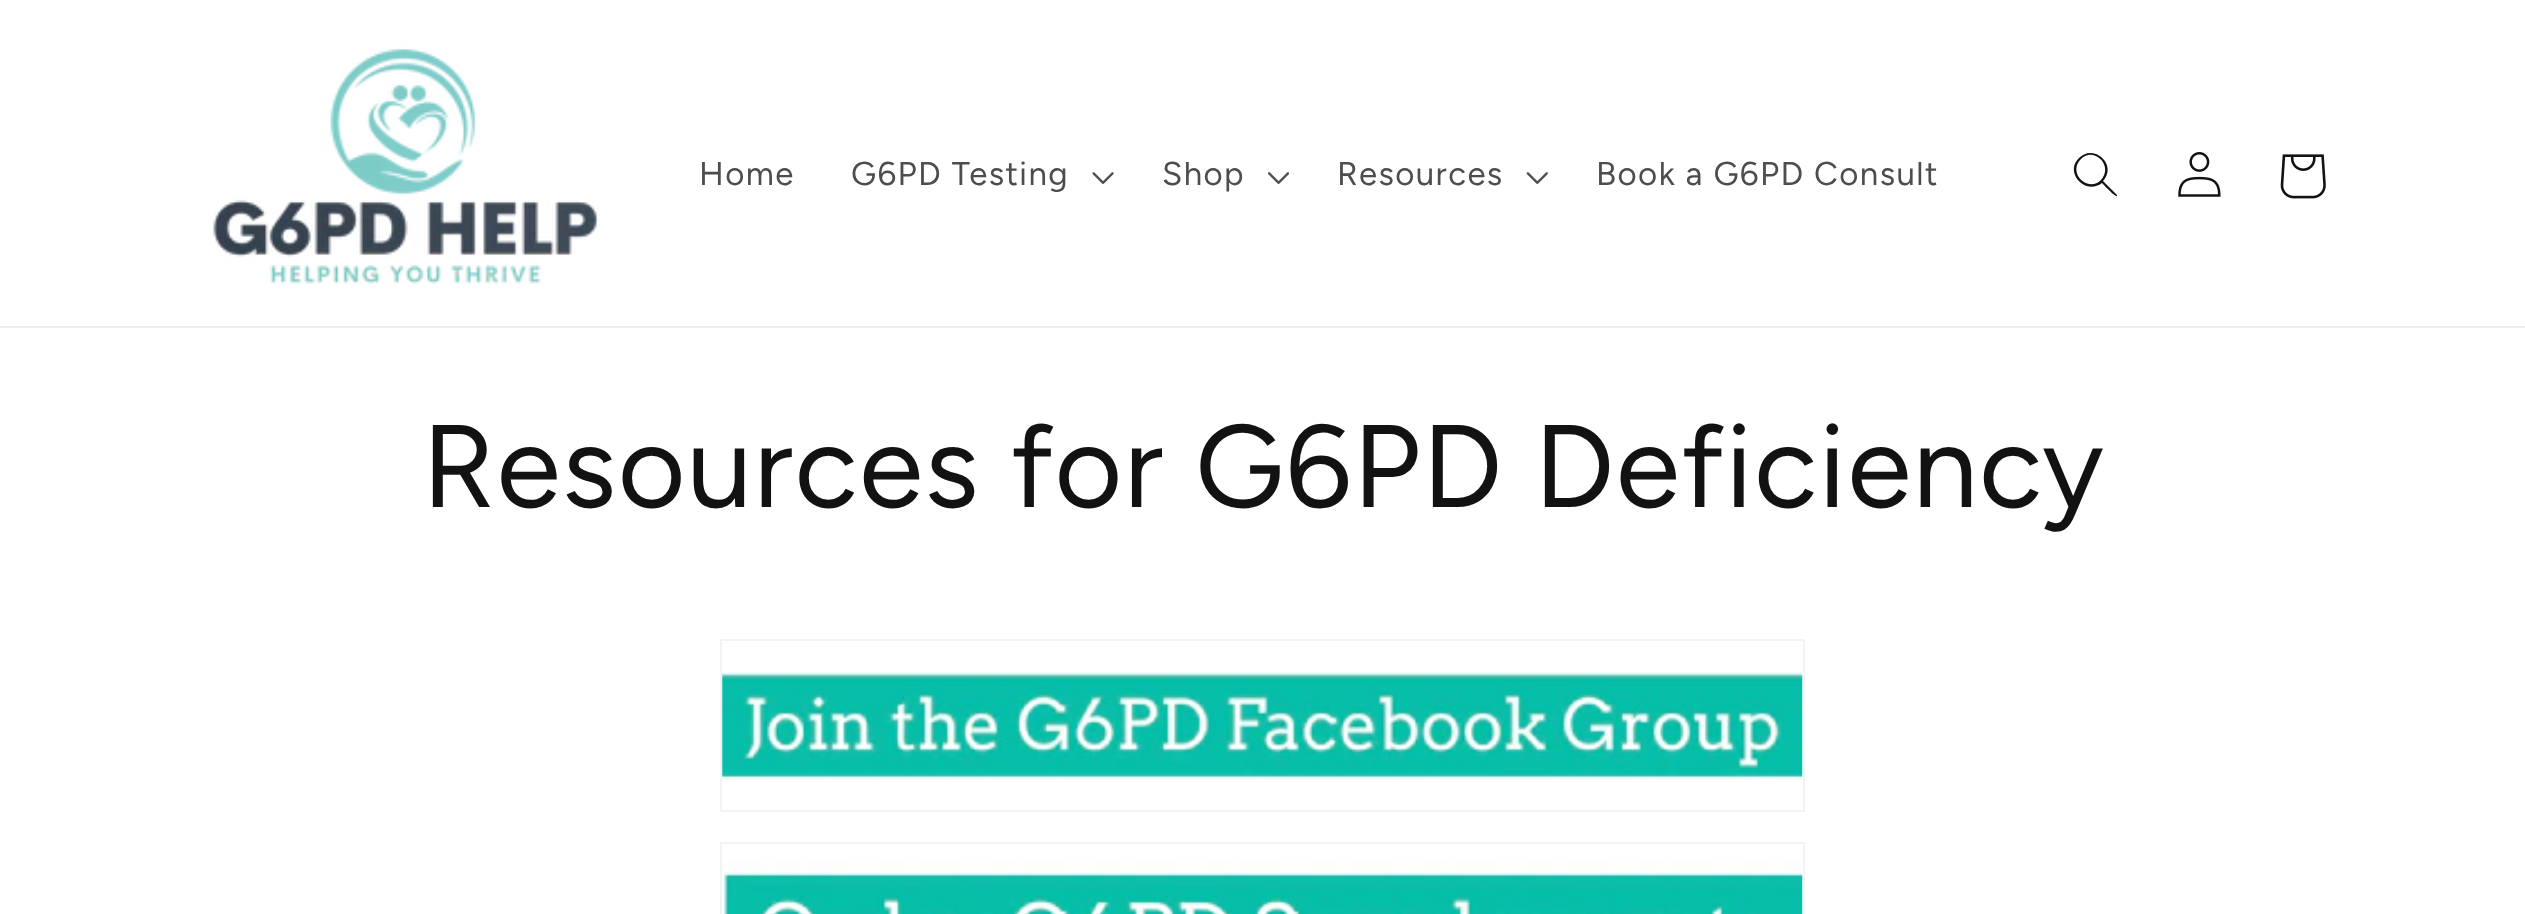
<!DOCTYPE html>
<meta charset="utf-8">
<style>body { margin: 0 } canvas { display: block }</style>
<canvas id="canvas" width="2525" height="914"></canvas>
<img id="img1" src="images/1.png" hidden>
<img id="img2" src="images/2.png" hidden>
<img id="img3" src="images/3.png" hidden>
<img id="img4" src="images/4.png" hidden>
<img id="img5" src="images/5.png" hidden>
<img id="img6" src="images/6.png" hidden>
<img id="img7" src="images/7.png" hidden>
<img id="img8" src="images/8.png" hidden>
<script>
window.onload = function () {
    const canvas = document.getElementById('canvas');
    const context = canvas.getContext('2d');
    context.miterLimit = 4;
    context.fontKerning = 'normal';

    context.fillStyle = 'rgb(255, 255, 255)';
    context.fillRect(0, 0, 2525, 914);
    context.fillStyle = 'rgb(236, 236, 236)';
    context.fillRect(0, 326, 2525, 2);
    context.drawImage(document.getElementById('img1'), 213, 47, 386, 237);
    context.drawImage(document.getElementById('img2'), 1092, 172, 22, 12);
    context.drawImage(document.getElementById('img3'), 1268, 172, 21, 12);
    context.drawImage(document.getElementById('img4'), 1526, 172, 22, 12);
    context.fillStyle = 'rgb(18, 18, 18)';
    context.beginPath();
    context.moveTo(2101, 180);
    context.bezierCurveTo(2088, 193, 2067, 173, 2081, 159);
    context.bezierCurveTo(2094, 146, 2114, 166, 2101, 180);
    context.closePath();
    context.moveTo(2102, 183);
    context.bezierCurveTo(2085, 196, 2064, 172, 2079, 158);
    context.bezierCurveTo(2094, 143, 2118, 165, 2103, 181);
    context.lineTo(2117, 195);
    context.lineTo(2117, 196);
    context.bezierCurveTo(2115, 197, 2104, 185, 2102, 183);
    context.closePath();
    context.fill('evenodd');
    context.drawImage(document.getElementById('img5'), 2178, 152, 43, 45);
    context.drawImage(document.getElementById('img6'), 2280, 154, 46, 45);
    context.strokeStyle = 'rgb(243, 243, 243)';
    context.lineWidth = 2;
    context.strokeRect(721, 640, 1083, 171);
    context.drawImage(document.getElementById('img7'), 722, 672, 1081, 109);
    context.strokeRect(721, 843, 1083, 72);
    context.drawImage(document.getElementById('img8'), 722, 862, 1081, 52);
    context.letterSpacing = '1.4px';
    context.font = '33px Figtree';
    context.fillStyle = 'rgb(77, 77, 77)';
    context.fillText('Home', 699, 185);
    context.fillText('G6PD Testing', 851, 185);
    context.fillText('Shop', 1162, 185);
    context.fillText('Resources', 1337, 185);
    context.fillText('Book a G6PD Consult', 1596, 185);
    context.letterSpacing = '1.35px';
    context.font = '117px Figtree';
    context.fillStyle = 'rgb(18, 18, 18)';
    context.fillText('Resources for G6PD Deficiency', 422, 507);
};
</script>
